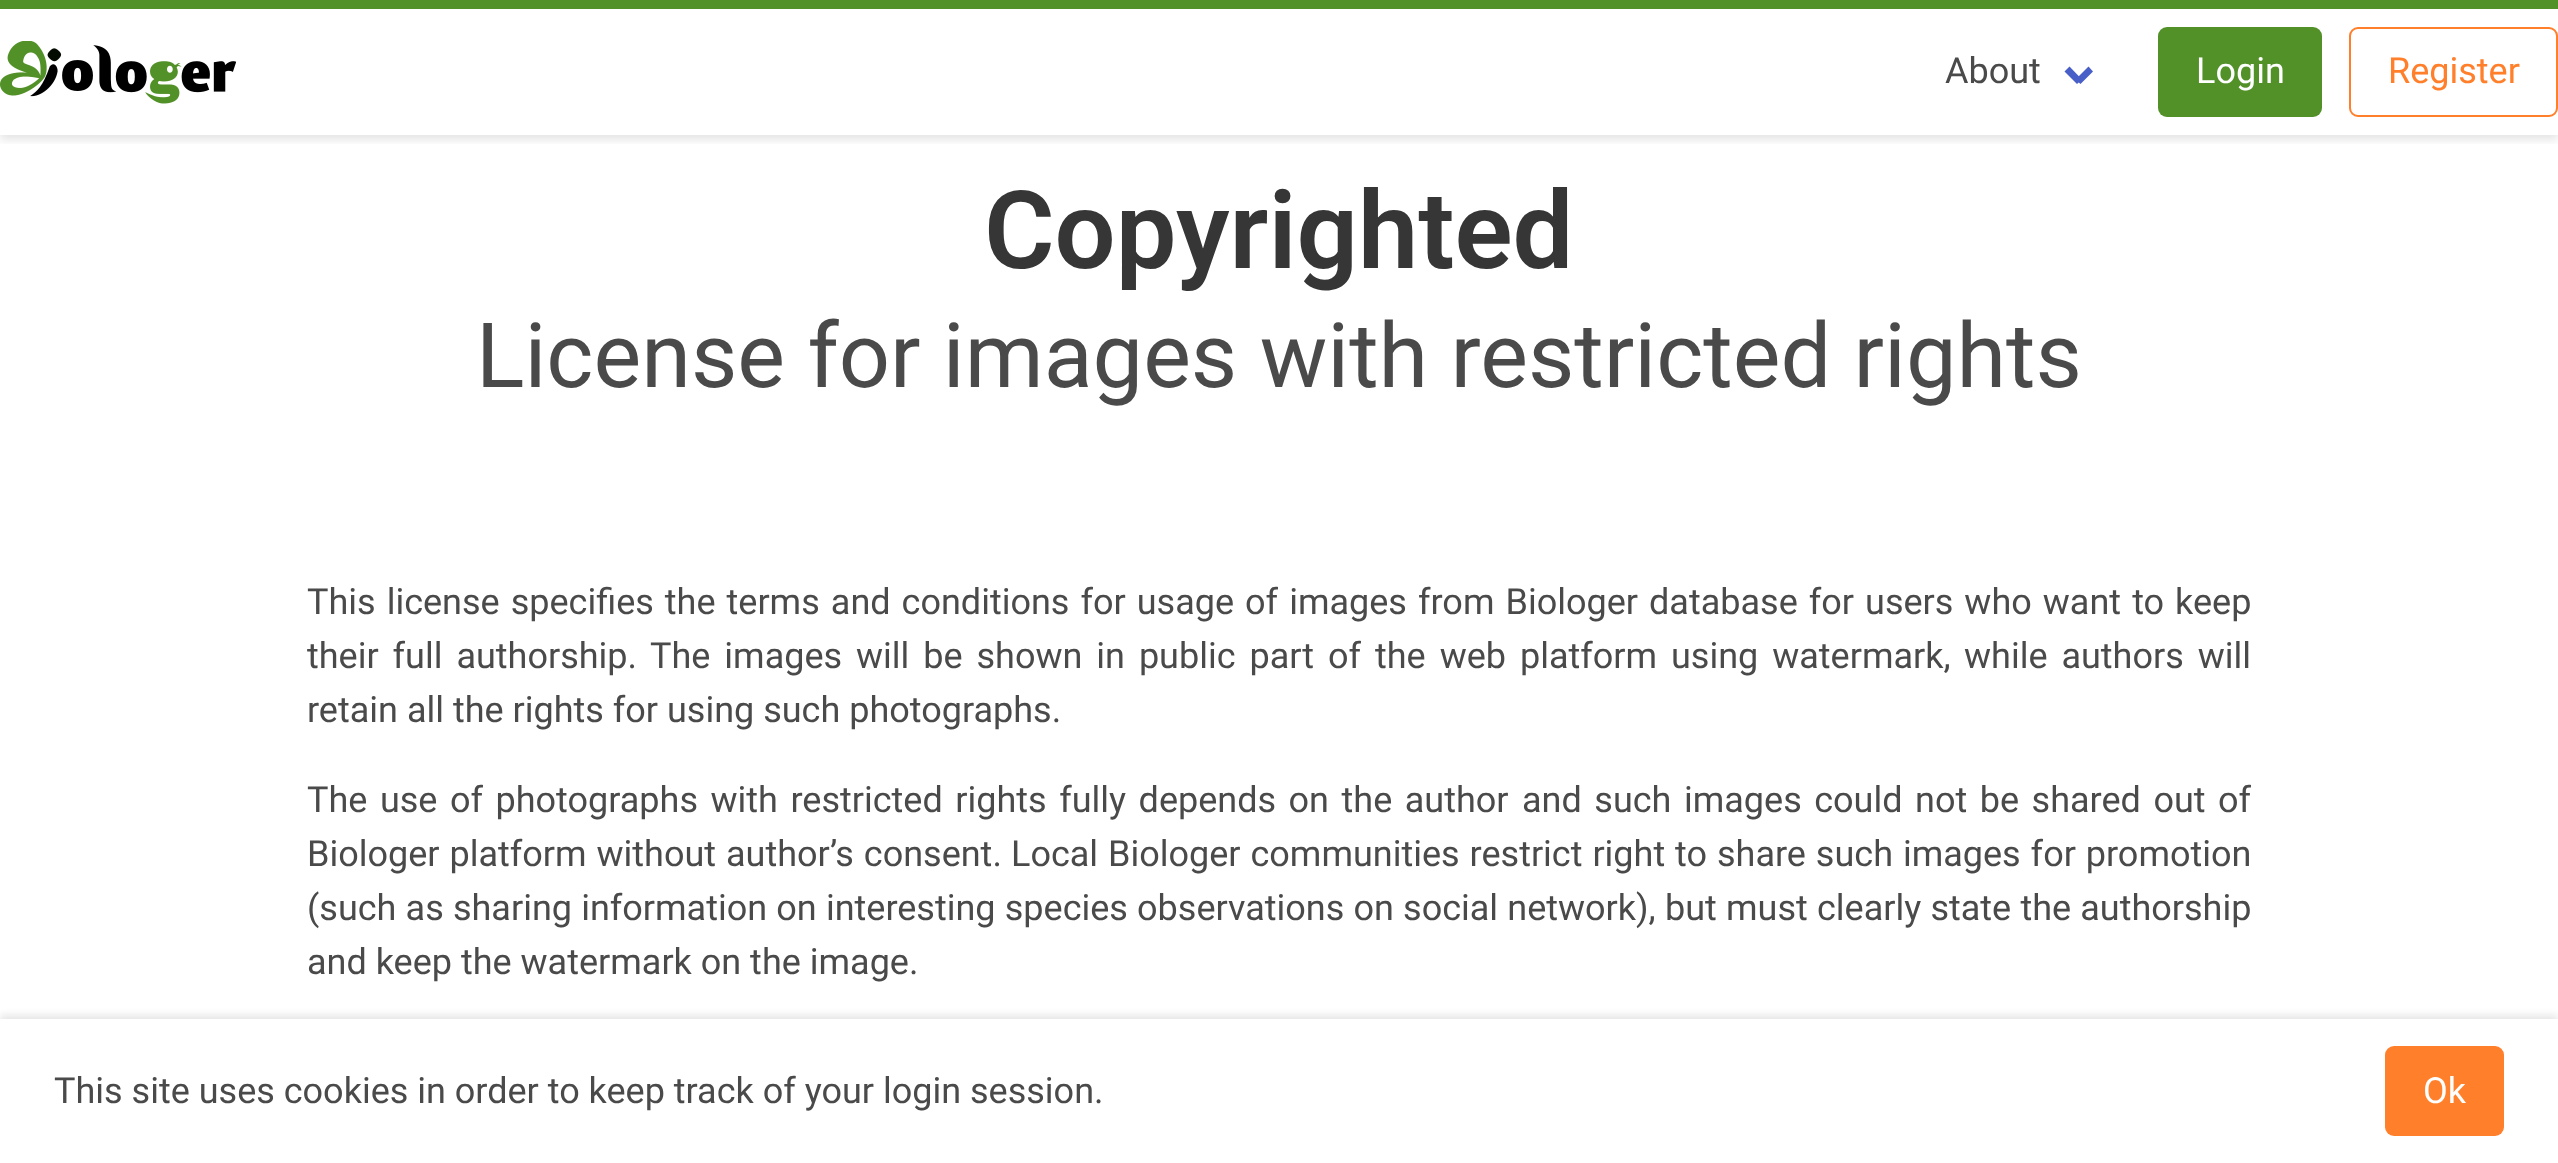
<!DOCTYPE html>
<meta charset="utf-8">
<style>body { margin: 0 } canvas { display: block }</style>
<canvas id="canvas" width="2558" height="1163"></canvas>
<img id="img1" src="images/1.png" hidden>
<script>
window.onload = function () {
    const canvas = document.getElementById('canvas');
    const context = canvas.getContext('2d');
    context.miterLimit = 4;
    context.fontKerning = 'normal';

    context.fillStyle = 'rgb(255, 255, 255)';
    context.fillRect(0, 0, 2558, 1163);
    context.save();
    context.beginPath();
    context.rect(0, 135, 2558, 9);
    context.clip();
    context.fillStyle = 'rgba(0, 0, 0, 0.1)';
    context.filter = 'blur(4.5px)';
    context.beginPath();
    context.rect(0, 5, 2558, 135);
    context.fill();
    context.filter = 'none';
    context.restore();
    context.fillStyle = 'rgb(82, 144, 40)';
    context.fillRect(0, 0, 2558, 9);
    context.drawImage(document.getElementById('img1'), 0, 41, 236, 63);
    context.fillStyle = 'rgb(72, 95, 199)';
    context.beginPath();
    context.moveTo(2075.5, 79.5);
    context.lineTo(2088.5, 66.5);
    context.lineTo(2093, 71.5);
    context.lineTo(2080.5, 84);
    context.closePath();
    context.fill();
    context.beginPath();
    context.moveTo(2064.5, 71.5);
    context.lineTo(2069.5, 66.5);
    context.lineTo(2082, 79.5);
    context.lineTo(2077, 84);
    context.closePath();
    context.fill();
    context.fillStyle = 'rgb(82, 144, 40)';
    context.beginPath();
    context.roundRect(2158, 27, 164, 90, 9);
    context.fill();
    context.beginPath();
    context.roundRect(2350, 28, 207, 88, 8);
    context.strokeStyle = 'rgb(255, 127, 42)';
    context.lineWidth = 2;
    context.stroke();
    context.fillStyle = 'rgba(10, 10, 10, 0.1)';
    context.filter = 'blur(3.5px)';
    context.beginPath();
    context.rect(0, 1015, 2558, 144);
    context.fill();
    context.filter = 'none';
    context.fillStyle = 'rgb(255, 255, 255)';
    context.fillRect(0, 1019, 2558, 144);
    context.fillStyle = 'rgb(255, 127, 42)';
    context.beginPath();
    context.roundRect(2385, 1046, 119, 90, 9);
    context.fill();
    context.font = '36px Roboto';
    context.fillStyle = 'rgb(74, 74, 74)';
    context.fillText('About', 1945, 83);
    context.fillStyle = 'rgb(255, 255, 255)';
    context.fillText('Login', 2196, 83);
    context.fillStyle = 'rgb(255, 127, 42)';
    context.fillText('Register', 2388, 83);
    context.font = '600 108px Roboto';
    context.fillStyle = 'rgb(54, 54, 54)';
    context.fillText('Copyrighted', 984, 268);
    context.font = '90px Roboto';
    context.fillStyle = 'rgb(74, 74, 74)';
    context.fillText('License for images with restricted rights', 476, 387);
    context.wordSpacing = '2.1px';
    context.font = '36px Roboto';
    context.fillText('This license specifies the terms and conditions for usage of images', 307, 614);
    context.fillText('from Biologer database for users who want to keep', 1418, 614);
    context.wordSpacing = '5px';
    context.fillText('their full authorship.', 307, 668);
    context.fillText('The images will be shown in public part of the web platform using watermark,', 650, 668);
    context.fillText('while authors will', 1964, 668);
    context.wordSpacing = '0px';
    context.fillText('retain all the rights for using such photographs.', 307, 722);
    context.wordSpacing = '3.6px';
    context.fillText('The use of photographs with restricted rights fully depends on the author', 307, 812);
    context.fillText('and such images could not be shared out of', 1522, 812);
    context.wordSpacing = '1px';
    context.fillText('Biologer platform without author’s consent.', 307, 866);
    context.fillText('Local Biologer communities restrict right to share such images for promotion', 1011, 866);
    context.wordSpacing = '0.25px';
    context.fillText('(such as sharing information on interesting species observations on social network),', 307, 920);
    context.fillText('but must clearly state the authorship', 1665, 920);
    context.wordSpacing = '0px';
    context.fillText('and keep the watermark on the image.', 307, 974);
    context.fillText('This site uses cookies in order to keep track of your login session.', 54, 1103);
    context.fillStyle = 'rgb(255, 255, 255)';
    context.fillText('Ok', 2423, 1103);
};
</script>
